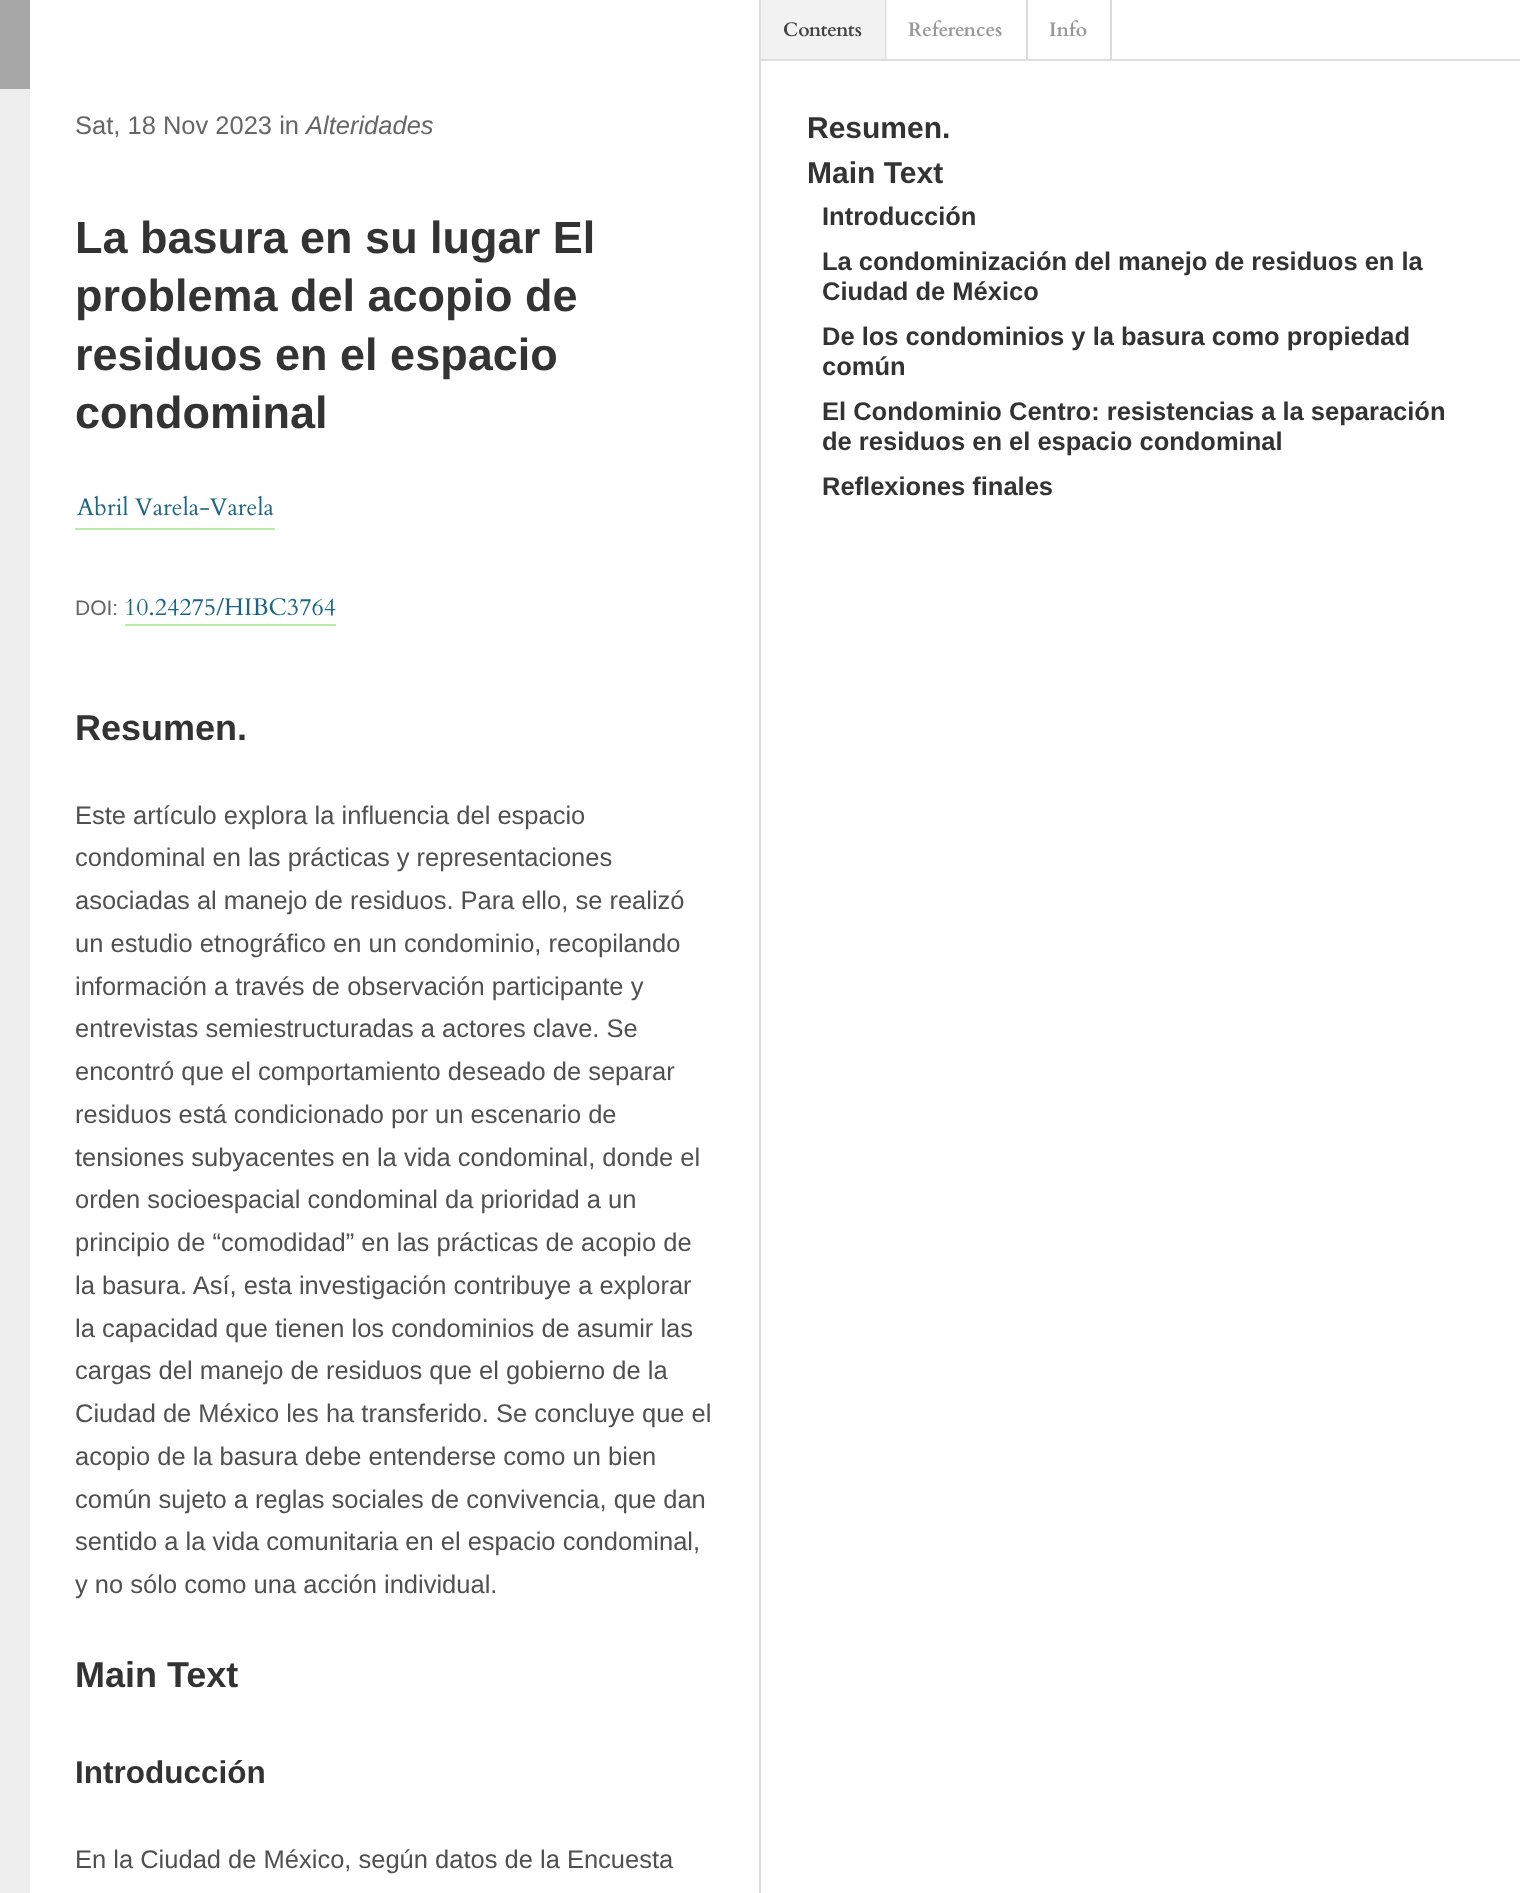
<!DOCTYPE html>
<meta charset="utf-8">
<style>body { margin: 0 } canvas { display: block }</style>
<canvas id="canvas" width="1520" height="1893"></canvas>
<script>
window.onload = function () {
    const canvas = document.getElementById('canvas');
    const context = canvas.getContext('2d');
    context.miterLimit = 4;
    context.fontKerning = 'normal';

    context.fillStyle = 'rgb(255, 255, 255)';
    context.fillRect(0, 0, 1520, 1893);
    context.fillStyle = 'rgb(221, 221, 221)';
    context.fillRect(759, 0, 2, 1893);
    context.fillStyle = 'rgb(238, 238, 238)';
    context.fillRect(0, 89, 30, 1804);
    context.fillStyle = 'rgb(167, 167, 167)';
    context.fillRect(0, 0, 30, 89);
    context.fillStyle = 'rgb(187, 234, 173)';
    context.fillRect(75, 528, 200, 2);
    context.fillRect(125, 624, 211, 2);
    context.fillStyle = 'rgb(221, 221, 221)';
    context.fillRect(761, 59, 759, 2);
    context.fillStyle = 'rgb(242, 242, 242)';
    context.fillRect(761, 0, 126, 59);
    context.save();
    context.beginPath();
    context.rect(761, 0, 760, 59);
    context.clip();
    context.fillStyle = 'rgb(221, 221, 221)';
    context.beginPath();
    context.moveTo(886, 0);
    context.lineTo(886, 64);
    context.lineTo(885, 60);
    context.lineTo(885, 0);
    context.closePath();
    context.fill();
    context.restore();
    context.fillStyle = 'rgb(221, 221, 221)';
    context.fillRect(1026, 0, 2, 59);
    context.fillRect(1110, 0, 2, 59);
    context.font = '25.5px Liberation Sans';
    context.fillStyle = 'rgb(102, 102, 102)';
    context.fillText('Sat, 18 Nov 2023 in', 75, 134);
    context.font = 'italic 25.5px Liberation Sans';
    context.fillText('Alteridades', 306, 134);
    context.font = 'bold 45px Liberation Sans';
    context.fillStyle = 'rgb(51, 51, 51)';
    context.fillText('La basura en su lugar El', 75, 253);
    context.fillText('problema del acopio de', 75, 311);
    context.fillText('residuos en el espacio', 75, 370);
    context.fillText('condominal', 75, 428);
    context.font = '24px Cardo';
    context.fillStyle = 'rgb(27, 102, 133)';
    context.fillText('Abril Varela-Varela', 77, 515);
    context.font = '21px Liberation Sans';
    context.fillStyle = 'rgb(102, 102, 102)';
    context.fillText('DOI:', 75, 615);
    context.font = '24px Cardo';
    context.fillStyle = 'rgb(27, 102, 133)';
    context.fillText('10.24275/HIBC3764', 124, 615);
    context.font = 'bold 36px Liberation Sans';
    context.fillStyle = 'rgb(51, 51, 51)';
    context.fillText('Resumen.', 75, 740);
    context.font = '25.5px Liberation Sans';
    context.fillStyle = 'rgb(80, 80, 80)';
    context.fillText('Este artículo explora la influencia del espacio', 75, 824);
    context.fillText('condominal en las prácticas y representaciones', 75, 866);
    context.fillText('asociadas al manejo de residuos. Para ello, se realizó', 75, 909);
    context.fillText('un estudio etnográfico en un condominio, recopilando', 75, 952);
    context.fillText('información a través de observación participante y', 75, 995);
    context.fillText('entrevistas semiestructuradas a actores clave. Se', 75, 1037);
    context.fillText('encontró que el comportamiento deseado de separar', 75, 1080);
    context.fillText('residuos está condicionado por un escenario de', 75, 1123);
    context.fillText('tensiones subyacentes en la vida condominal, donde el', 75, 1166);
    context.fillText('orden socioespacial condominal da prioridad a un', 75, 1208);
    context.fillText('principio de “comodidad” en las prácticas de acopio de', 75, 1251);
    context.fillText('la basura. Así, esta investigación contribuye a explorar', 75, 1294);
    context.fillText('la capacidad que tienen los condominios de asumir las', 75, 1337);
    context.fillText('cargas del manejo de residuos que el gobierno de la', 75, 1379);
    context.fillText('Ciudad de México les ha transferido. Se concluye que el', 75, 1422);
    context.fillText('acopio de la basura debe entenderse como un bien', 75, 1465);
    context.fillText('común sujeto a reglas sociales de convivencia, que dan', 75, 1508);
    context.fillText('sentido a la vida comunitaria en el espacio condominal,', 75, 1550);
    context.fillText('y no sólo como una acción individual.', 75, 1593);
    context.font = 'bold 36px Liberation Sans';
    context.fillStyle = 'rgb(51, 51, 51)';
    context.fillText('Main Text', 75, 1687);
    context.font = 'bold 31.5px Liberation Sans';
    context.fillText('Introducción', 75, 1783);
    context.font = '25.5px Liberation Sans';
    context.fillStyle = 'rgb(80, 80, 80)';
    context.fillText('En la Ciudad de México, según datos de la Encuesta', 75, 1868);
    context.font = 'bold 19.5px Cardo';
    context.fillStyle = 'rgb(68, 68, 68)';
    context.fillText('Contents', 783, 36);
    context.fillStyle = 'rgb(153, 153, 153)';
    context.fillText('References', 908, 36);
    context.fillText('Info', 1049, 36);
    context.font = 'bold 30px Liberation Sans';
    context.fillStyle = 'rgb(51, 51, 51)';
    context.fillText('Resumen.', 807, 138);
    context.fillText('Main Text', 807, 183);
    context.font = 'bold 25.5px Liberation Sans';
    context.fillText('Introducción', 822, 225);
    context.fillText('La condominización del manejo de residuos en la', 822, 270);
    context.fillText('Ciudad de México', 822, 300);
    context.fillText('De los condominios y la basura como propiedad', 822, 345);
    context.fillText('común', 822, 375);
    context.fillText('El Condominio Centro: resistencias a la separación', 822, 420);
    context.fillText('de residuos en el espacio condominal', 822, 450);
    context.fillText('Reflexiones finales', 822, 495);
};
</script>
